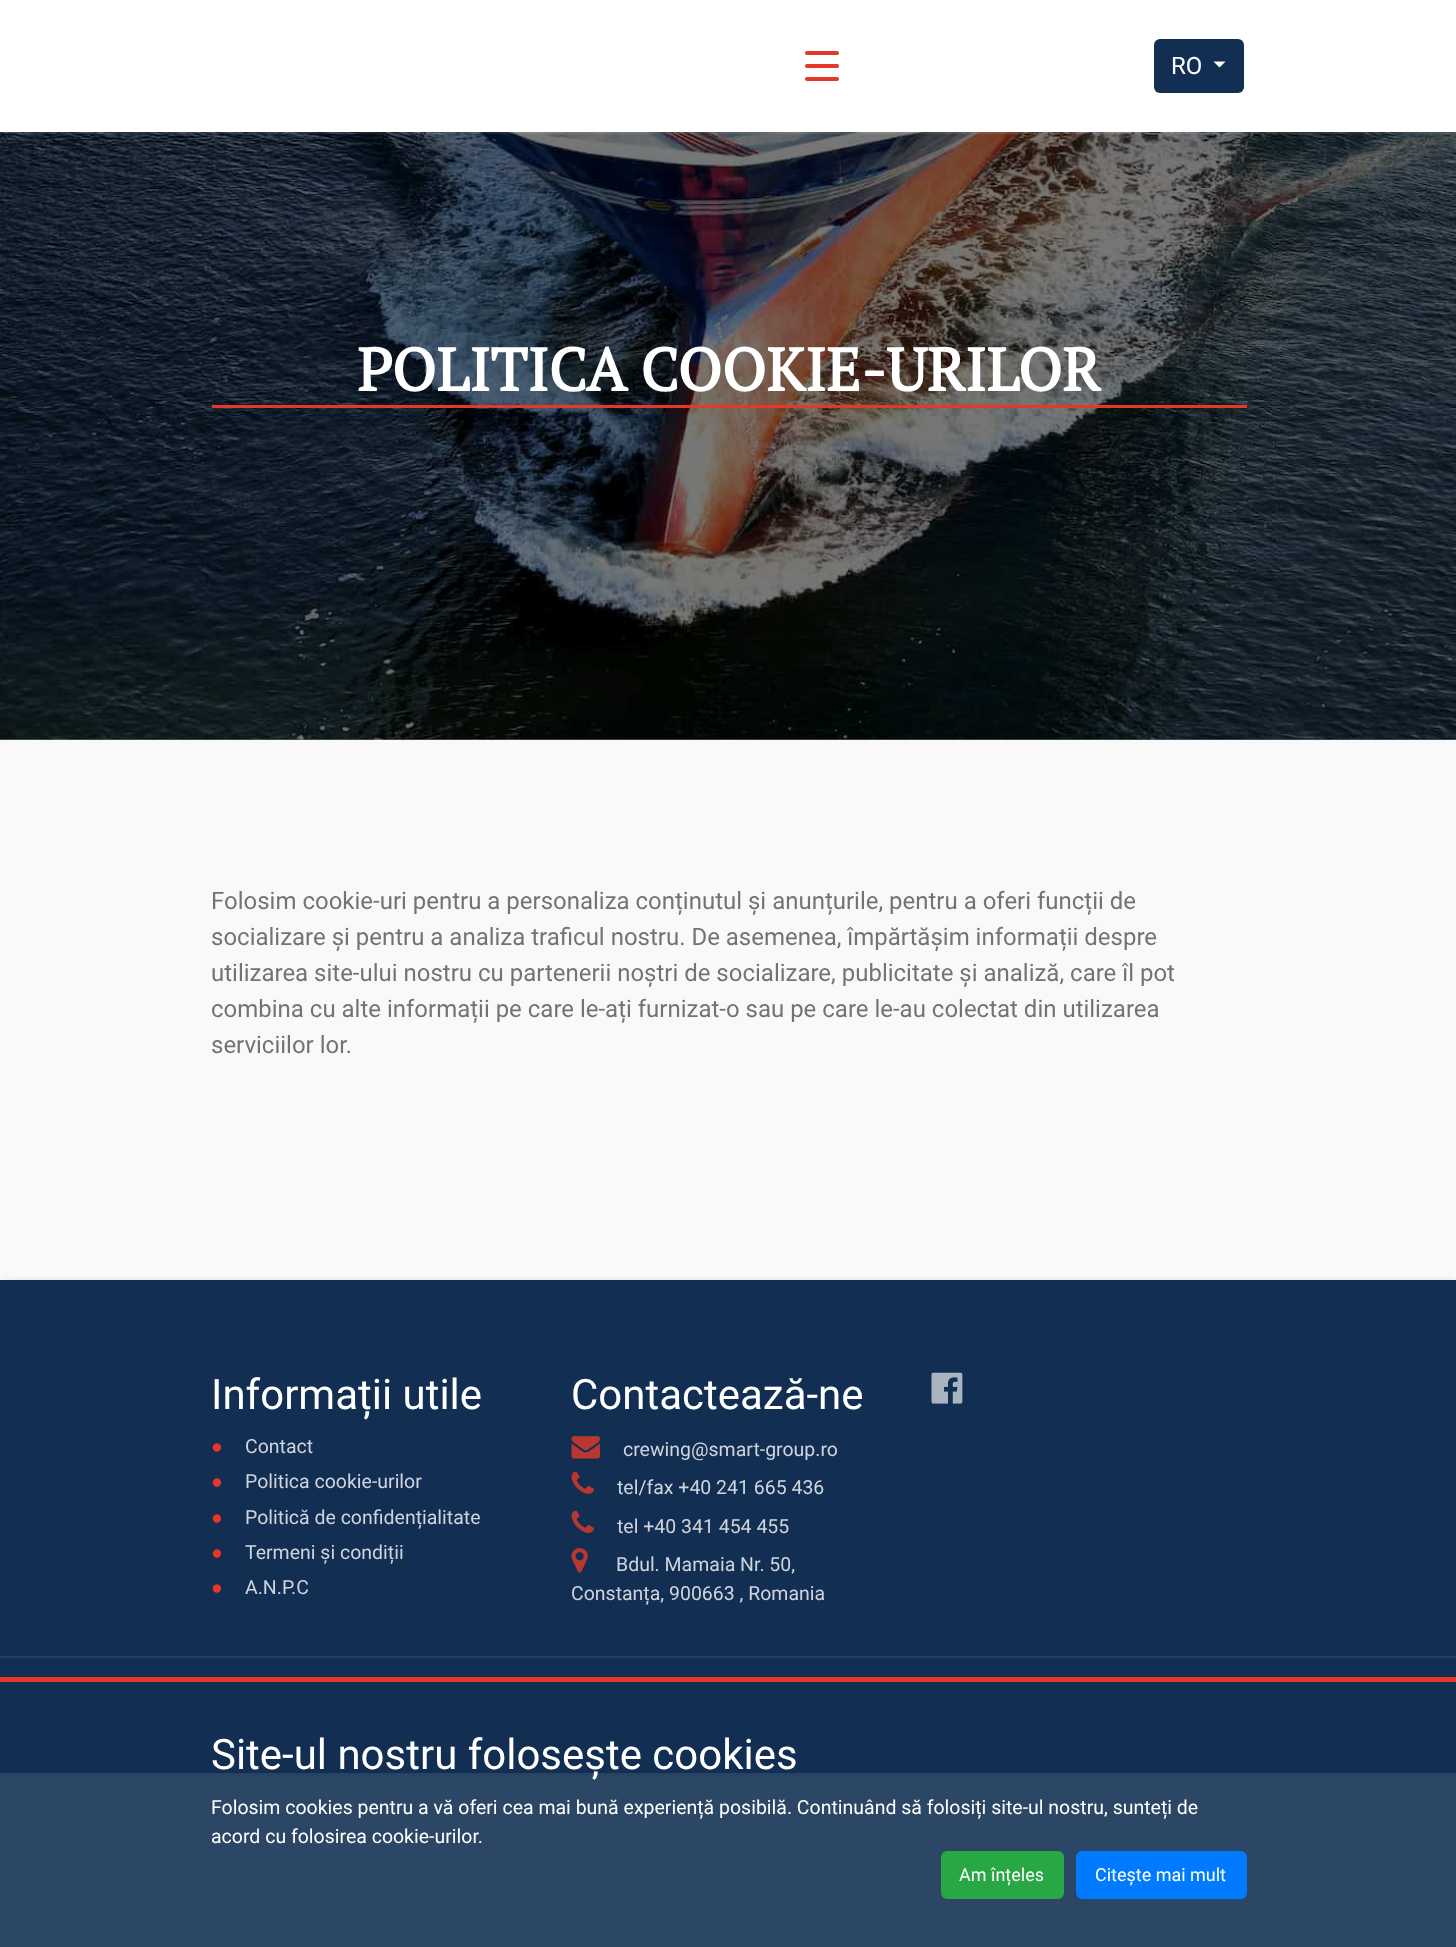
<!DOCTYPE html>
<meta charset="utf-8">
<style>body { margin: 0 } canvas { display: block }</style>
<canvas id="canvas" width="1456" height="1947"></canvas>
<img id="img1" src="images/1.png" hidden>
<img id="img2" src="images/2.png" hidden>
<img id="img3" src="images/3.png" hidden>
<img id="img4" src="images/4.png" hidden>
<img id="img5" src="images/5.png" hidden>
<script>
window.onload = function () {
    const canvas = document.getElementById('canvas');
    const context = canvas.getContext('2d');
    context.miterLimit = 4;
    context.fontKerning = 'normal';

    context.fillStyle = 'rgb(249, 249, 249)';
    context.fillRect(0, 0, 1456, 1947);
    context.fillStyle = 'rgb(117, 117, 117)';
    context.fillRect(0, 739, 1456, 1);
    context.drawImage(document.getElementById('img1'), 0, 132, 1456, 608);
    context.fillStyle = 'rgba(255, 255, 255, 0.1)';
    context.beginPath();
    context.moveTo(0, 132);
    context.lineTo(0, 134);
    context.lineTo(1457, 134);
    context.lineTo(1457, 2);
    context.lineTo(1456, 2);
    context.lineTo(1456, 132);
    context.closePath();
    context.fill();
    context.fillStyle = 'rgb(255, 255, 255)';
    context.fillRect(0, 0, 1456, 132);
    context.beginPath();
    context.moveTo(807, 53);
    context.lineTo(837, 53);
    context.moveTo(807, 66);
    context.lineTo(837, 66);
    context.moveTo(837, 79);
    context.lineTo(807, 79);
    context.strokeStyle = 'rgb(229, 56, 40)';
    context.lineWidth = 4.1;
    context.lineCap = 'round';
    context.stroke();
    context.fillStyle = 'rgb(18, 47, 83)';
    context.beginPath();
    context.roundRect(1154, 39, 90, 54, 6);
    context.fill();
    context.fillStyle = 'rgb(255, 255, 255)';
    context.beginPath();
    context.moveTo(1213.5, 61.5);
    context.lineTo(1225.5, 61.5);
    context.lineTo(1219.5, 67.5);
    context.closePath();
    context.fill();
    context.fillStyle = 'rgb(229, 56, 40)';
    context.fillRect(212, 405, 1035, 3);
    context.fillStyle = 'rgba(42, 42, 42, 0.4)';
    context.filter = 'blur(4px)';
    context.beginPath();
    context.rect(3, 1284, 1451, 488);
    context.fill();
    context.filter = 'none';
    context.fillStyle = 'rgb(18, 47, 83)';
    context.fillRect(0, 1280, 1456, 493);
    context.drawImage(document.getElementById('img2'), 571, 1436, 29, 23);
    context.drawImage(document.getElementById('img3'), 571, 1471, 23, 23);
    context.drawImage(document.getElementById('img3'), 571, 1510, 23, 23);
    context.drawImage(document.getElementById('img4'), 571, 1548, 17, 25);
    context.drawImage(document.getElementById('img5'), 931, 1372, 32, 32);
    context.fillStyle = 'rgb(37, 64, 96)';
    context.fillRect(0, 1656, 1456, 2);
    context.fillStyle = 'rgba(18, 47, 83, 0.89)';
    context.fillRect(0, 1773, 1456, 174);
    context.fillStyle = 'rgb(229, 56, 40)';
    context.fillRect(0, 1677, 1456, 5);
    context.fillStyle = 'rgb(40, 167, 69)';
    context.beginPath();
    context.roundRect(942, 1852, 121, 46, 5);
    context.fill();
    context.strokeStyle = 'rgb(40, 167, 69)';
    context.lineWidth = 2;
    context.stroke();
    context.fillStyle = 'rgb(0, 123, 255)';
    context.beginPath();
    context.roundRect(1077, 1852, 169, 46, 5);
    context.fill();
    context.strokeStyle = 'rgb(0, 123, 255)';
    context.stroke();
    context.font = '24px Roboto';
    context.fillStyle = 'rgb(255, 255, 255)';
    context.fillText('RO', 1171, 74);
    context.font = 'bold 60px PT Serif';
    context.fillText('POLITICA COOKIE-URILOR', 357, 391);
    context.font = '24px Roboto';
    context.fillStyle = 'rgb(115, 115, 115)';
    context.fillText('Folosim cookie-uri pentru a personaliza conținutul și anunțurile, pentru a oferi funcții de', 211, 909);
    context.fillText('socializare și pentru a analiza traficul nostru. De asemenea, împărtășim informații despre', 211, 945);
    context.fillText('utilizarea site-ului nostru cu partenerii noștri de socializare, publicitate și analiză, care îl pot', 211, 981);
    context.fillText('combina cu alte informații pe care le-ați furnizat-o sau pe care le-au colectat din utilizarea', 211, 1017);
    context.fillText('serviciilor lor.', 211, 1053);
    context.font = '42px Roboto';
    context.fillStyle = 'rgb(255, 255, 255)';
    context.fillText('Informații utile', 211, 1409);
    context.font = '19.5px Liberation Serif';
    context.fillStyle = 'rgb(229, 56, 40)';
    context.fillText('●', 211, 1453);
    context.font = '19.5px Roboto';
    context.fillStyle = 'rgb(208, 213, 221)';
    context.fillText('Contact', 245, 1453);
    context.font = '19.5px Liberation Serif';
    context.fillStyle = 'rgb(229, 56, 40)';
    context.fillText('●', 211, 1488);
    context.font = '19.5px Roboto';
    context.fillStyle = 'rgb(208, 213, 221)';
    context.fillText('Politica cookie-urilor', 245, 1488);
    context.font = '19.5px Liberation Serif';
    context.fillStyle = 'rgb(229, 56, 40)';
    context.fillText('●', 211, 1524);
    context.font = '19.5px Roboto';
    context.fillStyle = 'rgb(208, 213, 221)';
    context.fillText('Politică de confidențialitate', 245, 1524);
    context.font = '19.5px Liberation Serif';
    context.fillStyle = 'rgb(229, 56, 40)';
    context.fillText('●', 211, 1559);
    context.font = '19.5px Roboto';
    context.fillStyle = 'rgb(208, 213, 221)';
    context.fillText('Termeni și condiții', 245, 1559);
    context.font = '19.5px Liberation Serif';
    context.fillStyle = 'rgb(229, 56, 40)';
    context.fillText('●', 211, 1594);
    context.font = '19.5px Roboto';
    context.fillStyle = 'rgb(208, 213, 221)';
    context.fillText('A.N.P.C', 245, 1594);
    context.font = '42px Roboto';
    context.fillStyle = 'rgb(255, 255, 255)';
    context.fillText('Contactează-ne', 571, 1409);
    context.font = '19.5px Roboto';
    context.fillStyle = 'rgb(208, 213, 221)';
    context.fillText('crewing@smart-group.ro', 623, 1456);
    context.fillText('tel/fax +40 241 665 436', 617, 1494);
    context.fillText('tel +40 341 454 455', 617, 1533);
    context.fillText('Bdul. Mamaia Nr. 50,', 616, 1571);
    context.fillText('Constanța, 900663 , Romania', 571, 1600);
    context.font = '42px Roboto';
    context.fillStyle = 'rgb(255, 255, 255)';
    context.fillText('Site-ul nostru folosește cookies', 211, 1769);
    context.font = '19.5px Roboto';
    context.fillText('Folosim cookies pentru a vă oferi cea mai bună experiență posibilă. Continuând să folosiți site-ul nostru, sunteți de', 211, 1814);
    context.fillText('acord cu folosirea cookie-urilor.', 211, 1843);
    context.font = '18px Roboto';
    context.fillText('Am înțeles', 959, 1881);
    context.fillText('Citește mai mult', 1095, 1881);
};
</script>
